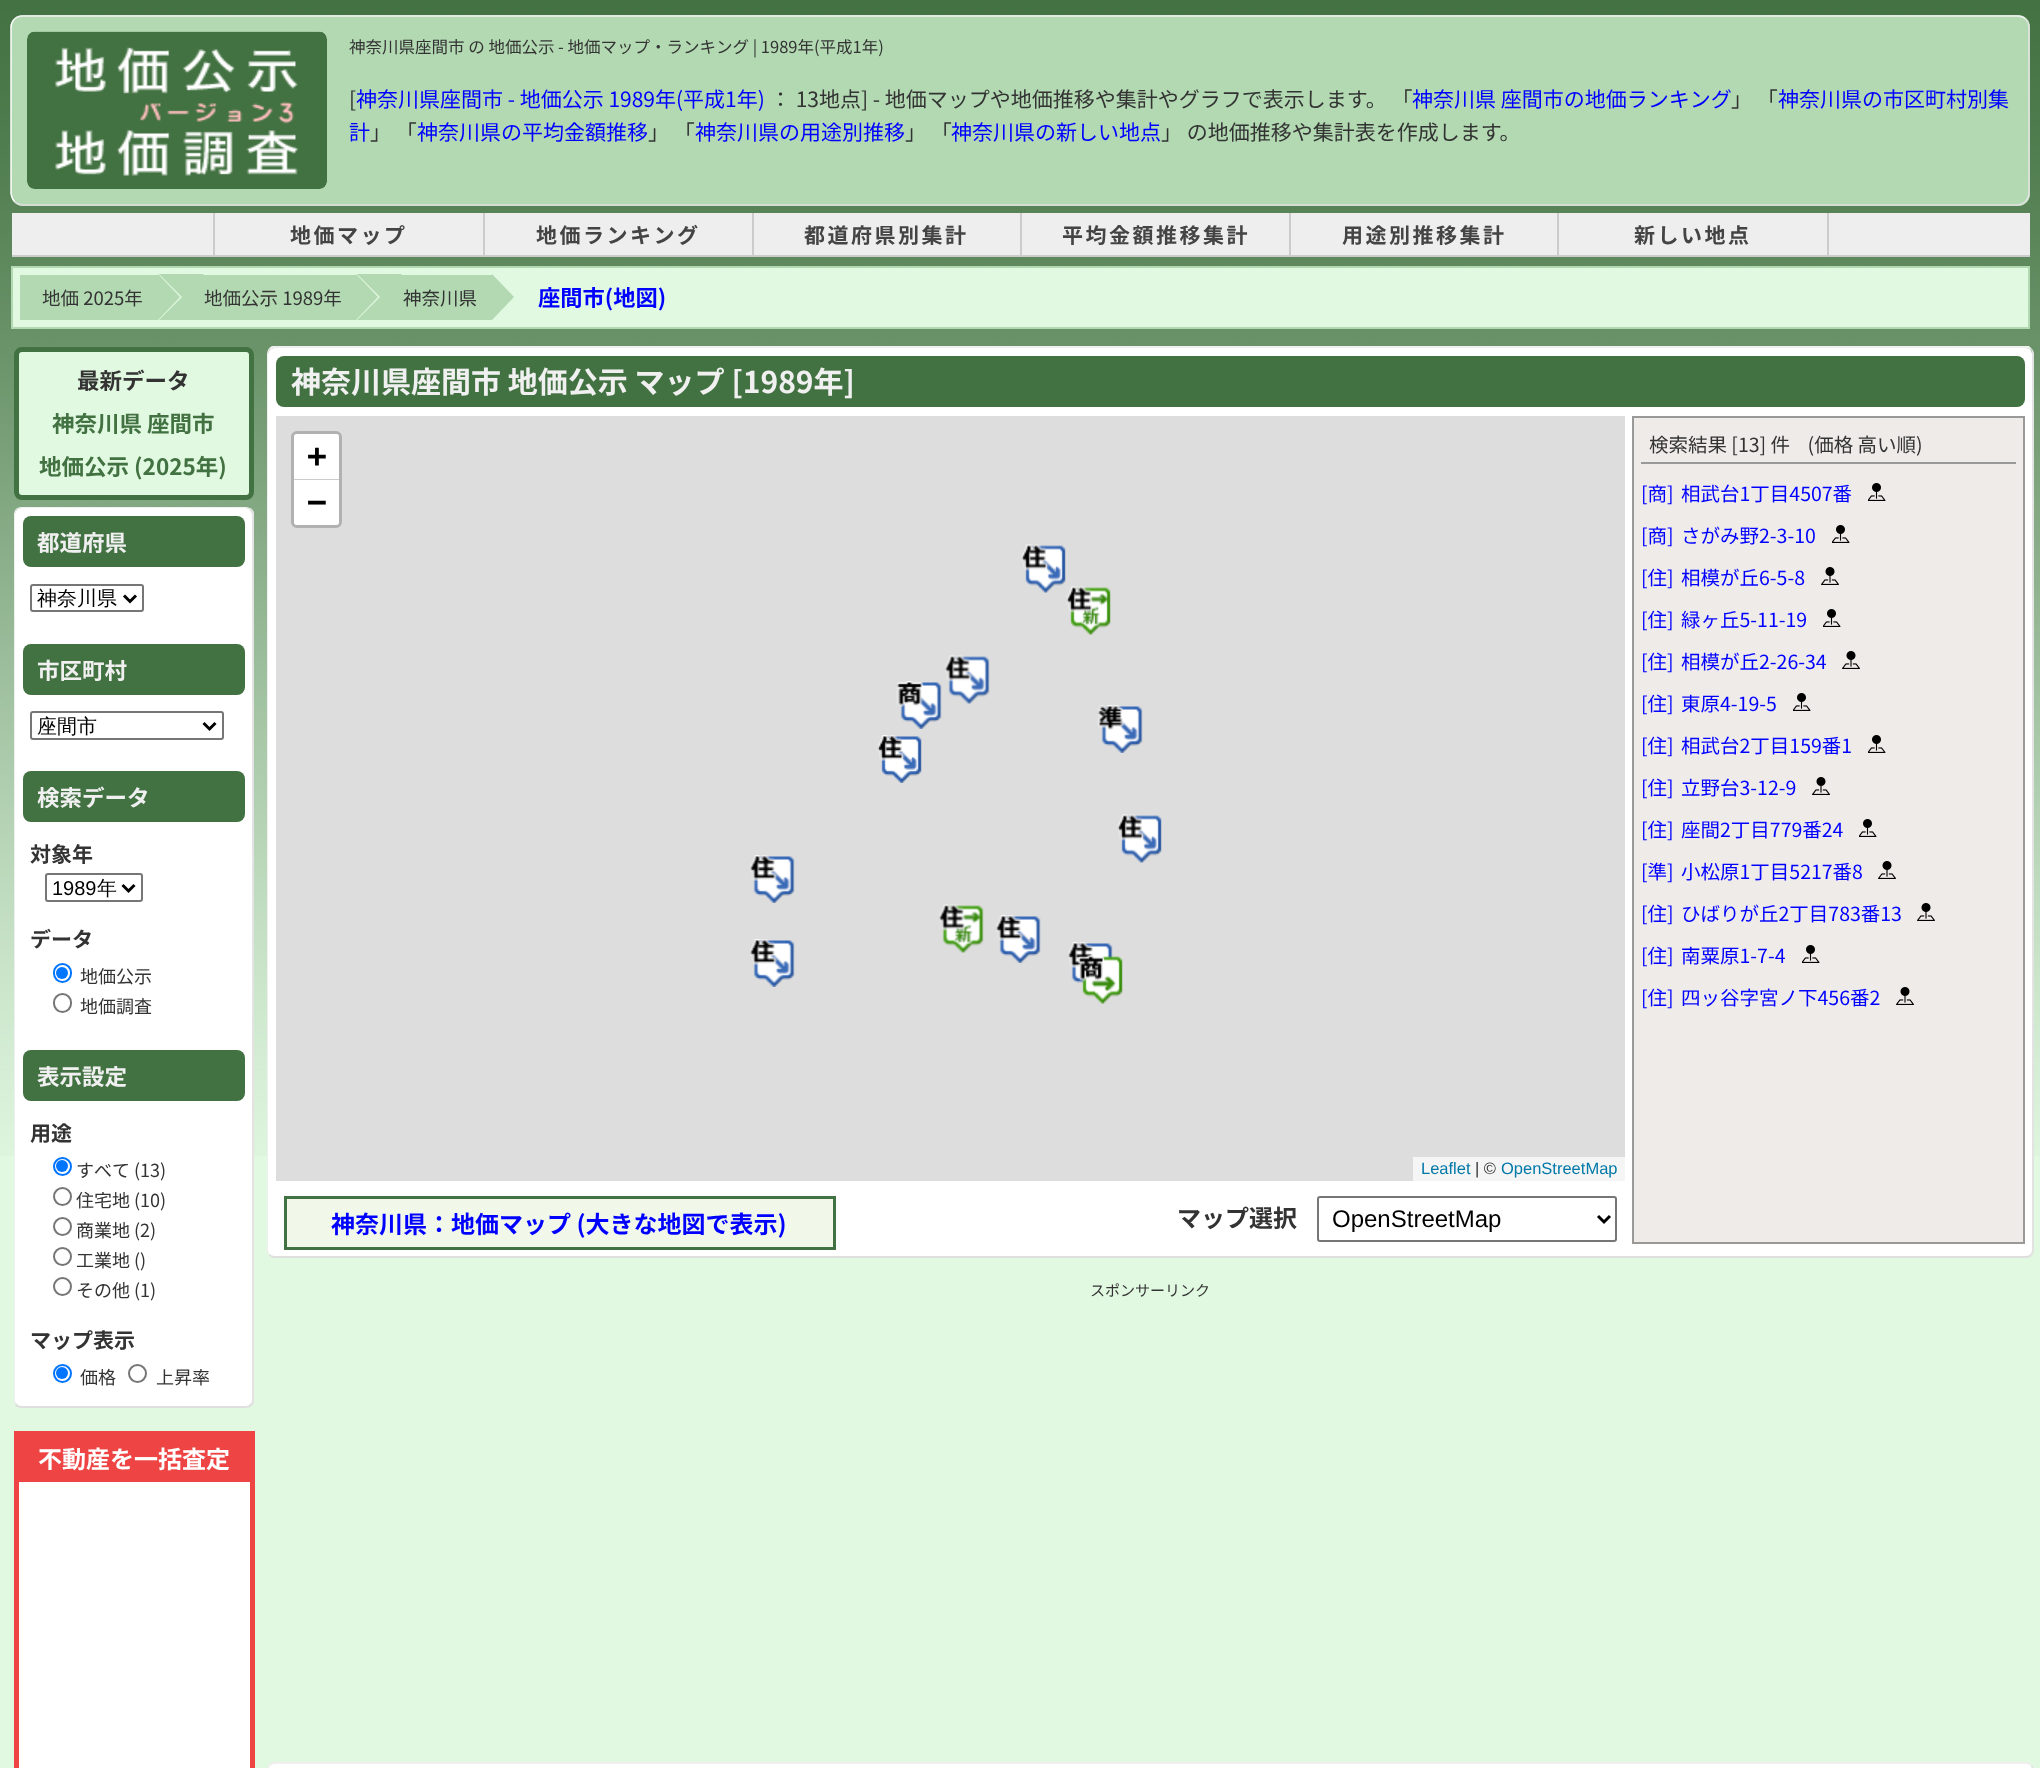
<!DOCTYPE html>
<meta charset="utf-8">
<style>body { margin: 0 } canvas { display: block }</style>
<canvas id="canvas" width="2040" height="1768"></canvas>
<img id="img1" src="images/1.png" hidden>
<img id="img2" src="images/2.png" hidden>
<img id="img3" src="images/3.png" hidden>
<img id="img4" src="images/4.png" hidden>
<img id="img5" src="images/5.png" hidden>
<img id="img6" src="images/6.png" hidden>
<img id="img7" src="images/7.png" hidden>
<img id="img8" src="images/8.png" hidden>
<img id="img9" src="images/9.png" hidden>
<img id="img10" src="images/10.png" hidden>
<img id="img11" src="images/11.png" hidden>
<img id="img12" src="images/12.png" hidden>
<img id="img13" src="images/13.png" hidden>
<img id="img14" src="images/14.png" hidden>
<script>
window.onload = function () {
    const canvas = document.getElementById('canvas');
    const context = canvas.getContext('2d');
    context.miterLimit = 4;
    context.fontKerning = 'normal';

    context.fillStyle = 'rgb(225, 248, 225)';
    context.fillRect(0, 0, 2040, 1768);
    context.drawImage(document.getElementById('img1'), 0, 0, 2040, 1156);
    context.fillStyle = 'rgb(178, 217, 178)';
    context.beginPath();
    context.roundRect(11, 15, 2019, 191, 12);
    context.fill();
    context.beginPath();
    context.moveTo(14.5, 19);
    context.bezierCurveTo(16.5, 17, 19.5, 16, 22.5, 16);
    context.lineTo(2017.5, 16);
    context.bezierCurveTo(2020.5, 16, 2023.5, 17, 2025.5, 19);
    context.strokeStyle = 'rgb(239, 239, 239)';
    context.lineWidth = 1.5;
    context.stroke();
    context.beginPath();
    context.moveTo(2025.5, 19);
    context.bezierCurveTo(2027.5, 21, 2029, 24, 2029, 27);
    context.lineTo(2029, 193.5);
    context.bezierCurveTo(2029, 196.5, 2027.5, 199.5, 2025.5, 201.5);
    context.strokeStyle = 'rgb(227, 227, 227)';
    context.stroke();
    context.beginPath();
    context.moveTo(2025.5, 201.5);
    context.bezierCurveTo(2023.5, 203.5, 2020.5, 205, 2017.5, 205);
    context.lineTo(22.5, 205);
    context.bezierCurveTo(19.5, 205, 16.5, 203.5, 14.5, 201.5);
    context.strokeStyle = 'rgb(223, 223, 223)';
    context.stroke();
    context.beginPath();
    context.moveTo(14.5, 201.5);
    context.bezierCurveTo(12.5, 199.5, 11.5, 196.5, 11, 193.5);
    context.lineTo(11, 27);
    context.bezierCurveTo(11, 24, 12.5, 21, 14.5, 19);
    context.strokeStyle = 'rgb(255, 255, 255)';
    context.stroke();
    context.drawImage(document.getElementById('img2'), 27, 31, 300, 158);
    context.fillStyle = 'rgb(238, 238, 238)';
    context.fillRect(12, 213, 2018, 42);
    context.fillStyle = 'rgb(204, 204, 204)';
    context.fillRect(12, 255, 2018, 2);
    context.fillRect(483, 213, 2, 42);
    context.fillRect(213, 213, 2, 42);
    context.fillRect(752, 213, 2, 42);
    context.fillRect(1020, 213, 2, 42);
    context.fillRect(1289, 213, 2, 42);
    context.fillRect(1557, 213, 2, 42);
    context.fillRect(1827, 213, 2, 42);
    context.fillStyle = 'rgb(225, 248, 225)';
    context.beginPath();
    context.rect(12, 267, 2017, 61);
    context.fill();
    context.strokeStyle = 'rgb(178, 217, 178)';
    context.lineWidth = 2;
    context.stroke();
    context.fillStyle = 'rgb(178, 217, 178)';
    context.fillRect(20, 275, 138, 45);
    context.beginPath();
    context.moveTo(158, 320);
    context.lineTo(158, 274);
    context.lineTo(180, 297);
    context.closePath();
    context.fill();
    context.fillRect(204, 275, 152, 45);
    context.beginPath();
    context.moveTo(159, 274);
    context.lineTo(204, 274);
    context.lineTo(182, 297);
    context.closePath();
    context.fill();
    context.fillRect(182, 275, 22, 45);
    context.beginPath();
    context.moveTo(204, 320);
    context.lineTo(159, 320);
    context.lineTo(182, 297);
    context.closePath();
    context.fill();
    context.beginPath();
    context.moveTo(356, 320);
    context.lineTo(356, 274);
    context.lineTo(378, 297);
    context.closePath();
    context.fill();
    context.fillRect(402, 275, 90, 45);
    context.beginPath();
    context.moveTo(357, 274);
    context.lineTo(402, 274);
    context.lineTo(380, 297);
    context.closePath();
    context.fill();
    context.fillRect(380, 275, 22, 45);
    context.beginPath();
    context.moveTo(402, 320);
    context.lineTo(357, 320);
    context.lineTo(380, 297);
    context.closePath();
    context.fill();
    context.beginPath();
    context.moveTo(492, 320);
    context.lineTo(492, 274);
    context.lineTo(514, 297);
    context.closePath();
    context.fill();
    context.fillStyle = 'rgb(225, 248, 225)';
    context.beginPath();
    context.roundRect(16.5, 349.5, 235, 148, 5.5);
    context.fill();
    context.strokeStyle = 'rgb(67, 114, 66)';
    context.lineWidth = 5;
    context.stroke();
    context.fillStyle = 'rgb(255, 255, 255)';
    context.beginPath();
    context.moveTo(21, 508);
    context.lineTo(246, 508);
    context.bezierCurveTo(249, 508, 252, 511, 252, 514);
    context.lineTo(252, 1401);
    context.bezierCurveTo(252, 1403, 249, 1406, 246, 1406);
    context.lineTo(21, 1406);
    context.bezierCurveTo(18, 1406, 15, 1403, 15, 1401);
    context.lineTo(15, 514);
    context.bezierCurveTo(15, 511, 18, 508, 21, 508);
    context.closePath();
    context.fill();
    context.fillStyle = 'rgb(239, 239, 239)';
    context.beginPath();
    context.moveTo(21, 507);
    context.bezierCurveTo(19, 507, 17, 508, 16, 509);
    context.lineTo(17, 510);
    context.bezierCurveTo(18, 509, 19, 508, 21, 508);
    context.lineTo(246, 508);
    context.bezierCurveTo(248, 508, 249, 509, 250, 510);
    context.lineTo(252, 509);
    context.bezierCurveTo(250, 508, 248, 507, 246, 507);
    context.closePath();
    context.fill();
    context.fillStyle = 'rgb(227, 227, 227)';
    context.beginPath();
    context.moveTo(254, 1403);
    context.lineTo(252, 1406);
    context.lineTo(251, 1403);
    context.lineTo(252, 1401);
    context.lineTo(252, 514);
    context.bezierCurveTo(252, 513, 251, 511, 250, 510);
    context.lineTo(252, 509);
    context.lineTo(254, 512);
    context.closePath();
    context.fill();
    context.fillStyle = 'rgb(223, 223, 223)';
    context.beginPath();
    context.moveTo(252, 1406);
    context.bezierCurveTo(250, 1407, 248, 1408, 246, 1408);
    context.lineTo(21, 1408);
    context.bezierCurveTo(19, 1408, 16, 1407, 15, 1405);
    context.lineTo(16, 1403);
    context.bezierCurveTo(17, 1405, 19, 1406, 21, 1406);
    context.lineTo(246, 1406);
    context.bezierCurveTo(248, 1406, 250, 1405, 251, 1403);
    context.closePath();
    context.fill();
    context.fillStyle = 'rgb(239, 239, 239)';
    context.beginPath();
    context.moveTo(16, 509);
    context.bezierCurveTo(15, 510, 14, 512, 14, 514);
    context.lineTo(14, 1401);
    context.bezierCurveTo(14, 1403, 14, 1404, 15, 1405);
    context.lineTo(16, 1403);
    context.lineTo(15, 1401);
    context.lineTo(15, 514);
    context.bezierCurveTo(15, 513, 16, 511, 17, 510);
    context.closePath();
    context.fill();
    context.fillStyle = 'rgb(67, 114, 66)';
    context.beginPath();
    context.roundRect(23, 516, 222, 51, 8);
    context.fill();
    context.beginPath();
    context.roundRect(31, 585, 112, 26, 2);
    context.strokeStyle = 'rgb(118, 118, 118)';
    context.lineWidth = 2;
    context.stroke();
    context.beginPath();
    context.moveTo(124, 595.5);
    context.lineTo(130, 601.5);
    context.lineTo(136, 595.5);
    context.strokeStyle = 'rgb(0, 0, 0)';
    context.lineWidth = 3;
    context.stroke();
    context.beginPath();
    context.roundRect(23, 644, 222, 51, 8);
    context.fill();
    context.beginPath();
    context.roundRect(31, 712, 192, 27, 2);
    context.strokeStyle = 'rgb(118, 118, 118)';
    context.lineWidth = 2;
    context.stroke();
    context.beginPath();
    context.moveTo(203.5, 723);
    context.lineTo(209.5, 729);
    context.lineTo(215.5, 723);
    context.strokeStyle = 'rgb(0, 0, 0)';
    context.lineWidth = 3;
    context.stroke();
    context.beginPath();
    context.roundRect(23, 771, 222, 51, 8);
    context.fill();
    context.beginPath();
    context.roundRect(46, 874, 96, 27, 2);
    context.strokeStyle = 'rgb(118, 118, 118)';
    context.lineWidth = 2;
    context.stroke();
    context.beginPath();
    context.moveTo(122.5, 885);
    context.lineTo(128.5, 891);
    context.lineTo(134.5, 885);
    context.strokeStyle = 'rgb(0, 0, 0)';
    context.lineWidth = 3;
    context.stroke();
    context.beginPath();
    context.roundRect(54, 964, 17, 18, 8.5);
    context.strokeStyle = 'rgb(0, 117, 255)';
    context.lineWidth = 2;
    context.stroke();
    context.fillStyle = 'rgb(0, 117, 255)';
    context.beginPath();
    context.arc(62, 973, 6, 0, 2 * Math.PI);
    context.fill();
    context.beginPath();
    context.roundRect(54, 994, 17, 18, 8.5);
    context.strokeStyle = 'rgb(118, 118, 118)';
    context.stroke();
    context.fillStyle = 'rgb(67, 114, 66)';
    context.beginPath();
    context.roundRect(23, 1050, 222, 51, 8);
    context.fill();
    context.beginPath();
    context.arc(62.5, 1166.5, 8.5, 0, 2 * Math.PI);
    context.strokeStyle = 'rgb(0, 117, 255)';
    context.stroke();
    context.fillStyle = 'rgb(0, 117, 255)';
    context.beginPath();
    context.arc(62, 1166, 6, 0, 2 * Math.PI);
    context.fill();
    context.beginPath();
    context.arc(62.5, 1196.5, 8.5, 0, 2 * Math.PI);
    context.strokeStyle = 'rgb(118, 118, 118)';
    context.stroke();
    context.beginPath();
    context.arc(62.5, 1226.5, 8.5, 0, 2 * Math.PI);
    context.stroke();
    context.beginPath();
    context.arc(62.5, 1256.5, 8.5, 0, 2 * Math.PI);
    context.stroke();
    context.beginPath();
    context.arc(62.5, 1286.5, 8.5, 0, 2 * Math.PI);
    context.stroke();
    context.beginPath();
    context.arc(62.5, 1373.5, 8.5, 0, 2 * Math.PI);
    context.strokeStyle = 'rgb(0, 117, 255)';
    context.stroke();
    context.beginPath();
    context.arc(62, 1373, 6, 0, 2 * Math.PI);
    context.fill();
    context.beginPath();
    context.arc(137.5, 1373.5, 8.5, 0, 2 * Math.PI);
    context.strokeStyle = 'rgb(118, 118, 118)';
    context.stroke();
    context.fillStyle = 'rgb(255, 255, 255)';
    context.fillRect(19, 1482, 231, 286);
    context.strokeStyle = 'rgb(238, 68, 68)';
    context.lineWidth = 5;
    context.strokeRect(16.5, 1433.5, 236, 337);
    context.fillStyle = 'rgb(238, 68, 68)';
    context.fillRect(19, 1436, 231, 46);
    context.fillStyle = 'rgb(255, 255, 255)';
    context.beginPath();
    context.moveTo(274, 348);
    context.lineTo(2026, 348);
    context.bezierCurveTo(2030, 348, 2032, 351, 2032, 354);
    context.lineTo(2032, 1251);
    context.bezierCurveTo(2032, 1253, 2030, 1256, 2026, 1256);
    context.lineTo(274, 1256);
    context.bezierCurveTo(271, 1256, 268, 1253, 268, 1251);
    context.lineTo(268, 354);
    context.bezierCurveTo(268, 351, 271, 348, 274, 348);
    context.closePath();
    context.fill();
    context.fillStyle = 'rgb(239, 239, 239)';
    context.beginPath();
    context.moveTo(274, 348);
    context.bezierCurveTo(273, 348, 271, 349, 270, 350);
    context.lineTo(269, 348);
    context.lineTo(272, 346);
    context.lineTo(2029, 346);
    context.lineTo(2032, 349);
    context.lineTo(2031, 350);
    context.bezierCurveTo(2030, 349, 2028, 348, 2026, 348);
    context.closePath();
    context.fill();
    context.fillStyle = 'rgb(227, 227, 227)';
    context.beginPath();
    context.moveTo(2034, 1251);
    context.lineTo(2034, 354);
    context.bezierCurveTo(2034, 352, 2033, 350, 2032, 349);
    context.lineTo(2031, 350);
    context.bezierCurveTo(2032, 351, 2032, 353, 2032, 354);
    context.lineTo(2032, 1251);
    context.lineTo(2031, 1253);
    context.lineTo(2032, 1255);
    context.bezierCurveTo(2033, 1254, 2034, 1253, 2034, 1251);
    context.closePath();
    context.fill();
    context.fillStyle = 'rgb(223, 223, 223)';
    context.beginPath();
    context.moveTo(2032, 1255);
    context.bezierCurveTo(2031, 1257, 2029, 1258, 2026, 1258);
    context.lineTo(274, 1258);
    context.bezierCurveTo(272, 1258, 270, 1257, 269, 1255);
    context.lineTo(269, 1254);
    context.bezierCurveTo(271, 1255, 272, 1256, 274, 1256);
    context.lineTo(2026, 1256);
    context.bezierCurveTo(2029, 1256, 2030, 1255, 2031, 1253);
    context.closePath();
    context.fill();
    context.fillStyle = 'rgb(239, 239, 239)';
    context.beginPath();
    context.moveTo(267, 354);
    context.lineTo(267, 1252);
    context.lineTo(269, 1255);
    context.lineTo(269, 1254);
    context.bezierCurveTo(269, 1253, 268, 1252, 268, 1251);
    context.lineTo(268, 354);
    context.bezierCurveTo(268, 352, 269, 351, 270, 350);
    context.lineTo(269, 348);
    context.bezierCurveTo(268, 350, 267, 352, 267, 354);
    context.closePath();
    context.fill();
    context.fillStyle = 'rgb(67, 114, 66)';
    context.beginPath();
    context.roundRect(276, 356, 1749, 51, 8);
    context.fill();
    context.fillStyle = 'rgb(221, 221, 221)';
    context.fillRect(276, 416, 1349, 765);
    context.beginPath();
    context.roundRect(292.5, 432.5, 48, 94, 4.5);
    context.strokeStyle = 'rgb(177, 177, 177)';
    context.lineWidth = 3;
    context.stroke();
    context.fillStyle = 'rgb(255, 255, 255)';
    context.beginPath();
    context.roundRect(294, 434, 45, 46, [3, 3, 0, 0]);
    context.fill();
    context.fillStyle = 'rgb(204, 204, 204)';
    context.fillRect(294, 479, 45, 1);
    context.fillStyle = 'rgb(255, 255, 255)';
    context.beginPath();
    context.roundRect(294, 480, 45, 45, [0, 0, 3, 3]);
    context.fill();
    context.fillStyle = 'rgb(245, 245, 245)';
    context.fillRect(1413, 1157, 212, 24);
    context.drawImage(document.getElementById('img3'), 1021, 544, 45, 49);
    context.drawImage(document.getElementById('img4'), 1066, 586, 45, 49);
    context.drawImage(document.getElementById('img5'), 896, 681, 46, 48);
    context.drawImage(document.getElementById('img6'), 944, 655, 46, 49);
    context.drawImage(document.getElementById('img7'), 1097, 705, 46, 48);
    context.drawImage(document.getElementById('img8'), 877, 735, 45, 48);
    context.drawImage(document.getElementById('img3'), 1117, 814, 45, 49);
    context.drawImage(document.getElementById('img9'), 750, 855, 45, 48);
    context.drawImage(document.getElementById('img9'), 750, 939, 45, 48);
    context.drawImage(document.getElementById('img10'), 938, 904, 46, 49);
    context.drawImage(document.getElementById('img9'), 996, 915, 45, 48);
    context.drawImage(document.getElementById('img11'), 1068, 942, 45, 42);
    context.drawImage(document.getElementById('img12'), 1078, 955, 45, 49);
    context.fillStyle = 'rgb(241, 248, 233)';
    context.beginPath();
    context.rect(285.5, 1197.5, 549, 51);
    context.fill();
    context.strokeStyle = 'rgb(67, 114, 66)';
    context.stroke();
    context.beginPath();
    context.roundRect(1318, 1197, 298, 44, 2);
    context.strokeStyle = 'rgb(118, 118, 118)';
    context.lineWidth = 2;
    context.stroke();
    context.beginPath();
    context.moveTo(1598, 1216);
    context.lineTo(1604, 1222);
    context.lineTo(1610, 1216);
    context.strokeStyle = 'rgb(0, 0, 0)';
    context.lineWidth = 3;
    context.stroke();
    context.fillStyle = 'rgb(239, 235, 233)';
    context.beginPath();
    context.rect(1633, 417, 391, 826);
    context.fill();
    context.strokeStyle = 'rgb(153, 153, 153)';
    context.lineWidth = 2;
    context.stroke();
    context.fillStyle = 'rgb(153, 153, 153)';
    context.fillRect(1641, 462, 375, 2);
    context.drawImage(document.getElementById('img13'), 1868, 483, 18, 18);
    context.drawImage(document.getElementById('img13'), 1832, 525, 18, 18);
    context.drawImage(document.getElementById('img14'), 1821, 567, 18, 18);
    context.drawImage(document.getElementById('img13'), 1823, 609, 18, 18);
    context.drawImage(document.getElementById('img14'), 1842, 651, 18, 18);
    context.drawImage(document.getElementById('img13'), 1793, 693, 18, 18);
    context.drawImage(document.getElementById('img13'), 1868, 735, 18, 18);
    context.drawImage(document.getElementById('img14'), 1812, 777, 18, 18);
    context.drawImage(document.getElementById('img13'), 1859, 819, 18, 18);
    context.drawImage(document.getElementById('img14'), 1878, 861, 18, 18);
    context.drawImage(document.getElementById('img14'), 1917, 903, 18, 18);
    context.drawImage(document.getElementById('img13'), 1802, 945, 18, 18);
    context.drawImage(document.getElementById('img14'), 1896, 987, 18, 18);
    context.fillStyle = 'rgb(255, 255, 255)';
    context.beginPath();
    context.moveTo(274, 1764);
    context.lineTo(2026, 1764);
    context.bezierCurveTo(2030, 1764, 2032, 1767, 2032, 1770);
    context.lineTo(2032, 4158);
    context.bezierCurveTo(2032, 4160, 2030, 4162, 2026, 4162);
    context.lineTo(274, 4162);
    context.bezierCurveTo(271, 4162, 268, 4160, 268, 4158);
    context.lineTo(268, 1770);
    context.bezierCurveTo(268, 1767, 271, 1764, 274, 1764);
    context.closePath();
    context.fill();
    context.fillStyle = 'rgb(239, 239, 239)';
    context.beginPath();
    context.moveTo(274, 1764);
    context.bezierCurveTo(273, 1764, 271, 1765, 270, 1766);
    context.lineTo(269, 1764);
    context.lineTo(272, 1762);
    context.lineTo(2029, 1762);
    context.lineTo(2032, 1765);
    context.lineTo(2031, 1766);
    context.bezierCurveTo(2030, 1765, 2028, 1764, 2026, 1764);
    context.closePath();
    context.fill();
    context.fillStyle = 'rgb(227, 227, 227)';
    context.beginPath();
    context.moveTo(2034, 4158);
    context.lineTo(2034, 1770);
    context.bezierCurveTo(2034, 1768, 2033, 1766, 2032, 1765);
    context.lineTo(2031, 1766);
    context.bezierCurveTo(2032, 1767, 2032, 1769, 2032, 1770);
    context.lineTo(2032, 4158);
    context.lineTo(2031, 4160);
    context.lineTo(2033, 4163);
    context.bezierCurveTo(2033, 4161, 2034, 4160, 2034, 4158);
    context.closePath();
    context.fill();
    context.fillStyle = 'rgb(239, 239, 239)';
    context.beginPath();
    context.moveTo(267, 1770);
    context.lineTo(267, 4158);
    context.bezierCurveTo(267, 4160, 268, 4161, 268, 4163);
    context.lineTo(270, 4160);
    context.lineTo(268, 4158);
    context.lineTo(268, 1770);
    context.bezierCurveTo(268, 1768, 269, 1767, 270, 1766);
    context.lineTo(269, 1764);
    context.bezierCurveTo(268, 1766, 267, 1768, 267, 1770);
    context.closePath();
    context.fill();
    context.font = '16.5px Noto Sans JP';
    context.fillStyle = 'rgb(51, 51, 51)';
    context.fillText('神奈川県座間市 の 地価公示 - 地価マップ・ランキング | 1989年(平成1年)', 349, 53);
    context.font = '21px Noto Sans JP';
    context.fillText('[', 349, 107);
    context.fillStyle = 'rgb(0, 0, 255)';
    context.fillText('神奈川県座間市 - 地価公示 1989年(平成1年)', 356, 107);
    context.fillStyle = 'rgb(51, 51, 51)';
    context.fillText('： 13地点] - 地価マップや地価推移や集計やグラフで表示します。 「', 770, 107);
    context.fillStyle = 'rgb(0, 0, 255)';
    context.fillText('神奈川県 座間市の地価ランキング', 1412, 107);
    context.fillStyle = 'rgb(51, 51, 51)';
    context.fillText('」 「', 1731, 107);
    context.fillStyle = 'rgb(0, 0, 255)';
    context.fillText('神奈川県の市区町村別集', 1778, 107);
    context.fillText('計', 349, 140);
    context.fillStyle = 'rgb(51, 51, 51)';
    context.fillText('」 「', 370, 140);
    context.fillStyle = 'rgb(0, 0, 255)';
    context.fillText('神奈川県の平均金額推移', 417, 140);
    context.fillStyle = 'rgb(51, 51, 51)';
    context.fillText('」 「', 648, 140);
    context.fillStyle = 'rgb(0, 0, 255)';
    context.fillText('神奈川県の用途別推移', 695, 140);
    context.fillStyle = 'rgb(51, 51, 51)';
    context.fillText('」 「', 905, 140);
    context.fillStyle = 'rgb(0, 0, 255)';
    context.fillText('神奈川県の新しい地点', 951, 140);
    context.fillStyle = 'rgb(51, 51, 51)';
    context.fillText('」 の地価推移や集計表を作成します。', 1161, 140);
    context.letterSpacing = '2.5px';
    context.font = 'bold 21px Noto Sans JP';
    context.fillStyle = 'rgb(68, 68, 68)';
    context.fillText('地価マップ', 290, 243);
    context.fillText('地価ランキング', 536, 243);
    context.fillText('都道府県別集計', 804, 243);
    context.fillText('平均金額推移集計', 1062, 243);
    context.fillText('用途別推移集計', 1342, 243);
    context.fillText('新しい地点', 1634, 243);
    context.letterSpacing = '0px';
    context.font = '18.5px Noto Sans JP';
    context.fillStyle = 'rgb(51, 51, 51)';
    context.fillText('地価 2025年', 42, 305);
    context.fillText('地価公示 1989年', 204, 305);
    context.fillText('神奈川県', 403, 305);
    context.font = 'bold 22.25px Noto Sans JP';
    context.fillStyle = 'rgb(0, 0, 255)';
    context.fillText('座間市(地図)', 538, 306);
    context.font = 'bold 22.5px Noto Sans JP';
    context.fillStyle = 'rgb(51, 51, 51)';
    context.fillText('最新データ', 77, 389);
    context.fillStyle = 'rgb(67, 114, 66)';
    context.fillText('神奈川県 座間市', 52, 432);
    context.fillText('地価公示 (2025年)', 39, 475);
    context.fillStyle = 'rgb(240, 240, 240)';
    context.fillText('都道府県', 37, 551);
    context.font = '500 20px WenQuanYi Zen Hei';
    context.fillStyle = 'rgb(0, 0, 0)';
    context.fillText('神奈川県', 37, 605);
    context.font = 'bold 22.5px Noto Sans JP';
    context.fillStyle = 'rgb(240, 240, 240)';
    context.fillText('市区町村', 37, 679);
    context.font = '500 20px WenQuanYi Zen Hei';
    context.fillStyle = 'rgb(0, 0, 0)';
    context.fillText('座間市', 37, 733);
    context.font = 'bold 22.5px Noto Sans JP';
    context.fillStyle = 'rgb(240, 240, 240)';
    context.fillText('検索データ', 37, 806);
    context.font = 'bold 21px Noto Sans JP';
    context.fillStyle = 'rgb(51, 51, 51)';
    context.fillText('対象年', 30, 862);
    context.font = '20px Liberation Sans';
    context.fillStyle = 'rgb(0, 0, 0)';
    context.fillText('1989', 52, 895);
    context.font = '500 20px WenQuanYi Zen Hei';
    context.fillText('年', 97, 895);
    context.font = 'bold 21px Noto Sans JP';
    context.fillStyle = 'rgb(51, 51, 51)';
    context.fillText('データ', 30, 947);
    context.font = '18px Noto Sans JP';
    context.fillText('地価公示', 80, 983);
    context.fillText('地価調査', 80, 1013);
    context.font = 'bold 22.5px Noto Sans JP';
    context.fillStyle = 'rgb(240, 240, 240)';
    context.fillText('表示設定', 37, 1085);
    context.font = 'bold 21px Noto Sans JP';
    context.fillStyle = 'rgb(51, 51, 51)';
    context.fillText('用途', 30, 1141);
    context.font = '18px Noto Sans JP';
    context.fillText('すべて (13)', 76, 1177);
    context.fillText('住宅地 (10)', 76, 1207);
    context.fillText('商業地 (2)', 76, 1237);
    context.fillText('工業地 ()', 76, 1267);
    context.fillText('その他 (1)', 76, 1297);
    context.font = 'bold 21px Noto Sans JP';
    context.fillText('マップ表示', 30, 1348);
    context.font = '18px Noto Sans JP';
    context.fillText('価格', 80, 1384);
    context.fillText('上昇率', 156, 1384);
    context.font = 'bold 24px Noto Sans JP';
    context.fillStyle = 'rgb(255, 255, 255)';
    context.fillText('不動産を一括査定', 38, 1468);
    context.font = 'bold 30px Noto Sans JP';
    context.fillStyle = 'rgb(240, 240, 240)';
    context.fillText('神奈川県座間市 地価公示 マップ [1989年]', 291, 393);
    context.font = 'bold 33px DejaVu Sans Mono';
    context.fillStyle = 'rgb(0, 0, 0)';
    context.fillText('+', 307, 467);
    context.fillText('−', 307, 513);
    context.font = '16.5px Liberation Sans';
    context.fillStyle = 'rgb(0, 120, 168)';
    context.fillText('Leaflet', 1421, 1174);
    context.fillStyle = 'rgb(51, 51, 51)';
    context.fillText('| ©', 1475, 1174);
    context.fillStyle = 'rgb(0, 120, 168)';
    context.fillText('OpenStreetMap', 1501, 1174);
    context.font = 'bold 24px Noto Sans JP';
    context.fillStyle = 'rgb(0, 0, 255)';
    context.fillText('神奈川県：地価マップ (大きな地図で表示)', 331, 1233);
    context.fillStyle = 'rgb(51, 51, 51)';
    context.fillText('マップ選択', 1177, 1227);
    context.font = '24px Liberation Sans';
    context.fillStyle = 'rgb(0, 0, 0)';
    context.fillText('OpenStreetMap', 1332, 1227);
    context.font = '19.5px Noto Sans JP';
    context.fillStyle = 'rgb(51, 51, 51)';
    context.fillText('検索結果 [13] 件    (価格 高い順)', 1649, 452);
    context.fillStyle = 'rgb(0, 0, 255)';
    context.fillText('[商]', 1641, 501);
    context.fillText('相武台1丁目4507番', 1681, 501);
    context.fillText('[商]', 1641, 543);
    context.fillText('さがみ野2-3-10', 1681, 543);
    context.fillText('[住]', 1641, 585);
    context.fillText('相模が丘6-5-8', 1681, 585);
    context.fillText('[住]', 1641, 627);
    context.fillText('緑ヶ丘5-11-19', 1681, 627);
    context.fillText('[住]', 1641, 669);
    context.fillText('相模が丘2-26-34', 1681, 669);
    context.fillText('[住]', 1641, 711);
    context.fillText('東原4-19-5', 1681, 711);
    context.fillText('[住]', 1641, 753);
    context.fillText('相武台2丁目159番1', 1681, 753);
    context.fillText('[住]', 1641, 795);
    context.fillText('立野台3-12-9', 1681, 795);
    context.fillText('[住]', 1641, 837);
    context.fillText('座間2丁目779番24', 1681, 837);
    context.fillText('[準]', 1641, 879);
    context.fillText('小松原1丁目5217番8', 1681, 879);
    context.fillText('[住]', 1641, 921);
    context.fillText('ひばりが丘2丁目783番13', 1681, 921);
    context.fillText('[住]', 1641, 963);
    context.fillText('南粟原1-7-4', 1681, 963);
    context.fillText('[住]', 1641, 1005);
    context.fillText('四ッ谷字宮ノ下456番2', 1681, 1005);
    context.font = '15px Noto Sans JP';
    context.fillStyle = 'rgb(51, 51, 51)';
    context.fillText('スポンサーリンク', 1090, 1296);
};
</script>
